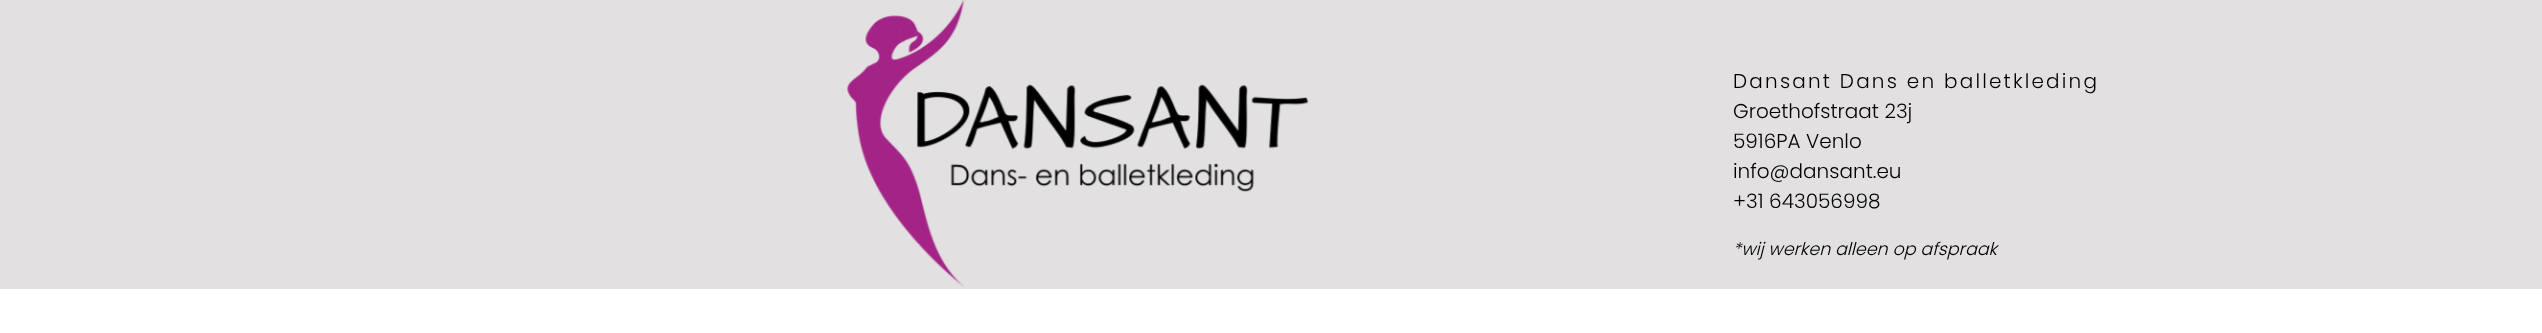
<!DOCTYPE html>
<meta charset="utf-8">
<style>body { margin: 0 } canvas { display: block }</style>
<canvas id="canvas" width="2542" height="333"></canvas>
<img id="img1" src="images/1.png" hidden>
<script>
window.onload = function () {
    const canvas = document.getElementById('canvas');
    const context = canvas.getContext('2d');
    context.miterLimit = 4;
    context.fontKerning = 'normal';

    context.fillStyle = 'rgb(255, 255, 255)';
    context.fillRect(0, 0, 2542, 333);
    context.fillStyle = 'rgb(226, 224, 224)';
    context.fillRect(0, 0, 2542, 289);
    context.drawImage(document.getElementById('img1'), 847, 0, 462, 287);
    context.letterSpacing = '2.2px';
    context.font = '300 20px Poppins';
    context.fillStyle = 'rgb(0, 0, 0)';
    context.fillText('Dansant Dans en balletkleding', 1733, 88);
    context.letterSpacing = '0px';
    context.fillText('Groethofstraat 23j', 1733, 118);
    context.fillText('5916PA Venlo', 1733, 148);
    context.fillText('info@dansant.eu', 1733, 178);
    context.fillText('+31 643056998', 1733, 208);
    context.font = 'italic 300 17.5px Poppins';
    context.fillText('*wij werken alleen op afspraak', 1733, 255);
};
</script>
